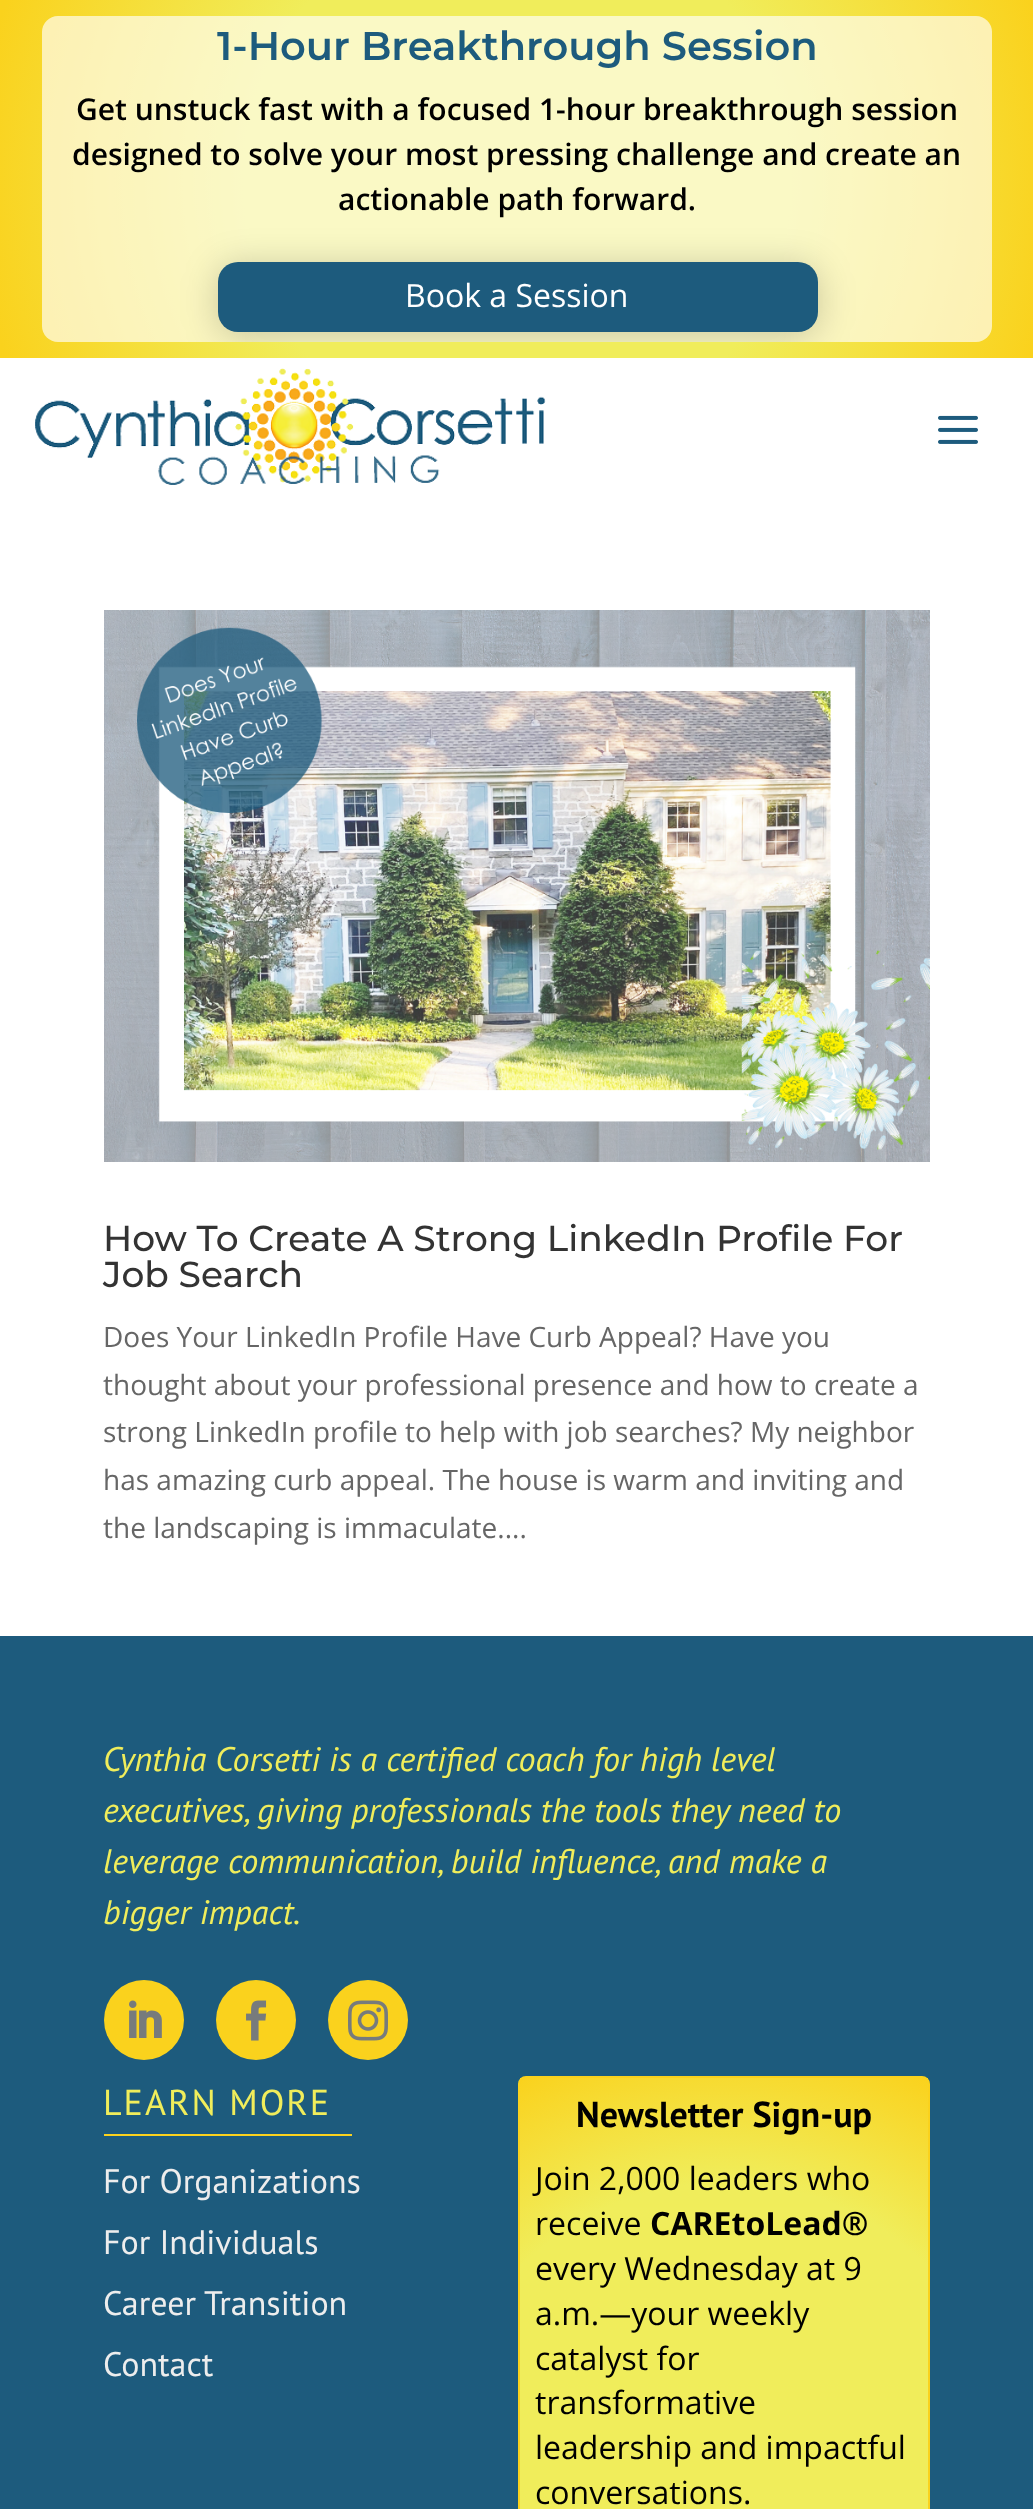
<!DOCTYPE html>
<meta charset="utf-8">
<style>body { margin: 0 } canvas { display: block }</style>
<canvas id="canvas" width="1033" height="2509"></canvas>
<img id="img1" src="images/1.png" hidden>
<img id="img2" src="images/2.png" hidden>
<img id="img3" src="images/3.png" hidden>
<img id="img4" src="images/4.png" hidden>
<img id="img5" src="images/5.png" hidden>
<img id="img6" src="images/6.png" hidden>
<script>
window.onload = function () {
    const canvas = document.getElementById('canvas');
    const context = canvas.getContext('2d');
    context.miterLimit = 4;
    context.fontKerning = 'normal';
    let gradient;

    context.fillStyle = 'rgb(255, 255, 255)';
    context.fillRect(0, 0, 1033, 2509);
    gradient = context.createRadialGradient(517, 179, 0, 517, 179, 547);
    gradient.addColorStop(0.5, 'rgb(240, 237, 91)');
    gradient.addColorStop(0.99, 'rgb(250, 210, 29)');
    context.fillStyle = gradient;
    context.fillRect(0, 0, 1033, 358);
    context.fillStyle = 'rgba(255, 255, 255, 0.65)';
    context.beginPath();
    context.roundRect(42, 16, 950, 326, 16);
    context.fill();
    context.save();
    context.beginPath();
    context.roundRect(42, 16, 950, 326, 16);
    context.clip();
    context.fillStyle = 'rgba(0, 0, 0, 0.2)';
    context.filter = 'blur(18px)';
    context.beginPath();
    context.roundRect(218, 266, 600, 70, 20);
    context.fill();
    context.filter = 'none';
    context.restore();
    context.fillStyle = 'rgb(29, 91, 125)';
    context.beginPath();
    context.roundRect(218, 262, 600, 70, 20);
    context.fill();
    context.drawImage(document.getElementById('img1'), 35, 368, 511, 117);
    context.drawImage(document.getElementById('img2'), 938, 415, 40, 29);
    context.drawImage(document.getElementById('img3'), 104, 610, 826, 552);
    context.fillRect(0, 1636, 1033, 873);
    context.fillStyle = 'rgb(250, 210, 29)';
    context.beginPath();
    context.arc(144, 2020, 40, 0, 2 * Math.PI);
    context.fill();
    context.drawImage(document.getElementById('img4'), 129, 2000, 33, 38);
    context.beginPath();
    context.arc(256, 2020, 40, 0, 2 * Math.PI);
    context.fill();
    context.drawImage(document.getElementById('img5'), 246, 2000, 21, 41);
    context.beginPath();
    context.arc(368, 2020, 40, 0, 2 * Math.PI);
    context.fill();
    context.drawImage(document.getElementById('img6'), 348, 2000, 40, 41);
    context.fillRect(104, 2134, 248, 2);
    gradient = context.createRadialGradient(724, 2469, 0, 724, 2469, 441);
    gradient.addColorStop(0.65, 'rgb(240, 237, 91)');
    gradient.addColorStop(1, 'rgb(250, 210, 29)');
    context.fillStyle = gradient;
    context.fillRect(520, 2078, 408, 431);
    context.beginPath();
    context.roundRect(519, 2077, 410, 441, 7);
    context.strokeStyle = 'rgb(250, 210, 29)';
    context.lineWidth = 2;
    context.stroke();
    context.font = '100 40px "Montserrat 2"';
    context.fillStyle = 'rgb(29, 91, 125)';
    context.fillText('1-Hour Breakthrough Session', 217, 60);
    context.font = '600 30px Open Sans';
    context.fillStyle = 'rgb(0, 0, 0)';
    context.fillText('Get unstuck fast with a focused 1-hour breakthrough session', 76, 120);
    context.fillText('designed to solve your most pressing challenge and create an', 72, 165);
    context.fillText('actionable path forward.', 338, 210);
    context.font = '32px Open Sans';
    context.fillStyle = 'rgb(255, 255, 255)';
    context.fillText('Book a Session', 405, 307);
    context.font = '100 36px Montserrat';
    context.fillStyle = 'rgb(51, 51, 51)';
    context.fillText('How To Create A Strong LinkedIn Profile For', 103, 1251);
    context.fillText('Job Search', 103, 1287);
    context.font = '28px Open Sans';
    context.fillStyle = 'rgb(102, 102, 102)';
    context.fillText('Does Your LinkedIn Profile Have Curb Appeal? Have you', 103, 1347);
    context.fillText('thought about your professional presence and how to create a', 103, 1395);
    context.fillText('strong LinkedIn profile to help with job searches? My neighbor', 103, 1442);
    context.fillText('has amazing curb appeal. The house is warm and inviting and', 103, 1490);
    context.fillText('the landscaping is immaculate....', 103, 1538);
    context.font = 'italic 34px PT Sans';
    context.fillStyle = 'rgb(240, 237, 91)';
    context.fillText('Cynthia Corsetti is a certified coach for high level', 103, 1771);
    context.fillText('executives, giving professionals the tools they need to', 103, 1822);
    context.fillText('leverage communication, build influence, and make a', 103, 1873);
    context.fillText('bigger impact.', 103, 1924);
    context.letterSpacing = '2px';
    context.font = '36px PT Sans';
    context.fillText('LEARN MORE', 103, 2115);
    context.letterSpacing = '0px';
    context.font = '34px PT Sans';
    context.fillStyle = 'rgb(237, 237, 237)';
    context.fillText('For Organizations', 103, 2193);
    context.fillText('For Individuals', 103, 2254);
    context.fillText('Career Transition', 103, 2315);
    context.fillText('Contact', 103, 2376);
    context.font = 'bold 36px PT Sans';
    context.fillStyle = 'rgb(0, 0, 0)';
    context.fillText('Newsletter Sign-up', 576, 2127);
    context.font = '32px Open Sans';
    context.fillText('Join 2,000 leaders who', 535, 2190);
    context.fillText('receive', 535, 2235);
    context.font = 'bold 32px Open Sans';
    context.fillText('CAREtoLead®', 650, 2235);
    context.font = '32px Open Sans';
    context.fillText('every Wednesday at 9', 535, 2280);
    context.fillText('a.m.—your weekly', 535, 2325);
    context.fillText('catalyst for', 535, 2370);
    context.fillText('transformative', 535, 2414);
    context.fillText('leadership and impactful', 535, 2459);
    context.fillText('conversations.', 535, 2504);
};
</script>
